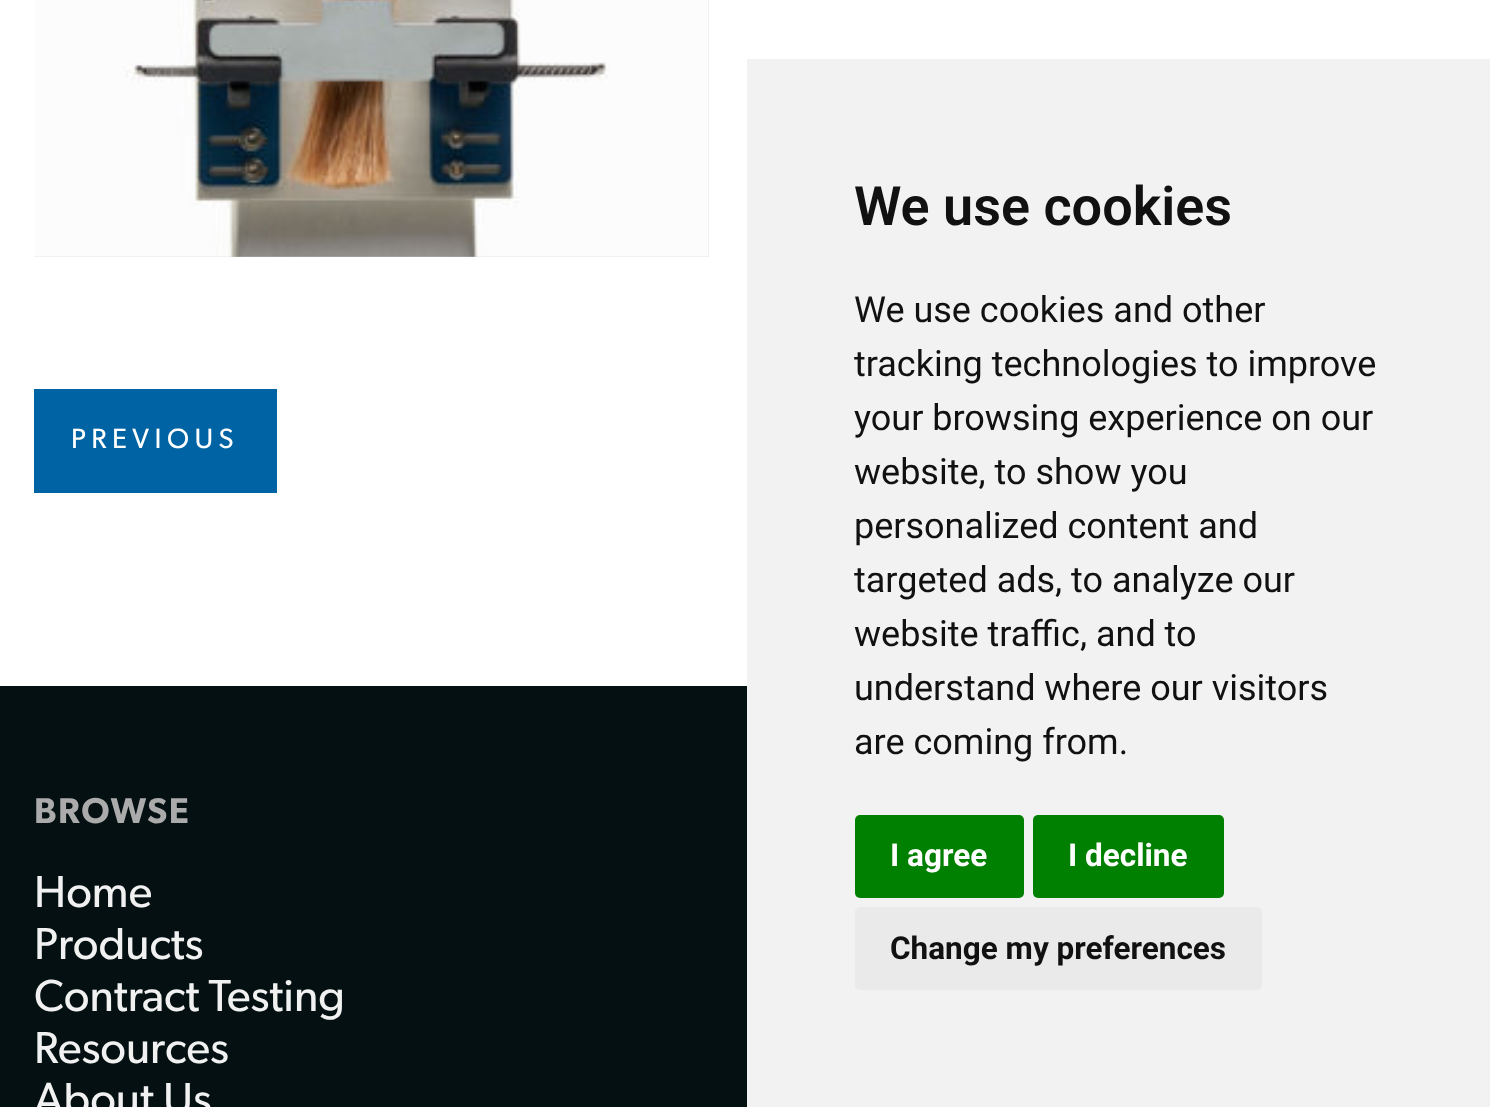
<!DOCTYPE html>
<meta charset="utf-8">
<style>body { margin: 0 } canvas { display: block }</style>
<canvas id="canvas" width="1490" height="1107"></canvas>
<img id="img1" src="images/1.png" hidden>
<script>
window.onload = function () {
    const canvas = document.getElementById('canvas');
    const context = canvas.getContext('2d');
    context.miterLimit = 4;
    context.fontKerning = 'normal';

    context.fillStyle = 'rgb(255, 255, 255)';
    context.fillRect(0, 0, 1490, 1107);
    context.fillStyle = 'rgb(206, 206, 204)';
    context.fillRect(34, 0, 675, 257);
    context.drawImage(document.getElementById('img1'), 34, 0, 675, 257);
    context.fillStyle = 'rgb(0, 99, 163)';
    context.fillRect(34, 389, 243, 104);
    context.fillStyle = 'rgb(242, 242, 242)';
    context.fillRect(747, 59, 743, 1048);
    context.fillStyle = 'rgb(0, 128, 0)';
    context.beginPath();
    context.roundRect(855, 815, 169, 83, 5);
    context.fill();
    context.beginPath();
    context.roundRect(1033, 815, 191, 83, 5);
    context.fill();
    context.fillStyle = 'rgb(234, 234, 234)';
    context.beginPath();
    context.roundRect(855, 907, 407, 83, 5);
    context.fill();
    context.fillStyle = 'rgb(4, 16, 17)';
    context.fillRect(0, 686, 747, 421);
    context.letterSpacing = '5.5px';
    context.font = '28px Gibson';
    context.fillStyle = 'rgb(255, 255, 255)';
    context.fillText('PREVIOUS', 71, 448);
    context.letterSpacing = '0px';
    context.font = '600 54px Roboto';
    context.fillStyle = 'rgb(17, 17, 17)';
    context.fillText('We use cookies', 854, 225);
    context.font = '36px Roboto';
    context.fillText('We use cookies and other', 854, 322);
    context.fillText('tracking technologies to improve', 854, 376);
    context.fillText('your browsing experience on our', 854, 430);
    context.fillText('website, to show you', 854, 484);
    context.fillText('personalized content and', 854, 538);
    context.fillText('targeted ads, to analyze our', 854, 592);
    context.fillText('website traffic, and to', 854, 646);
    context.fillText('understand where our visitors', 854, 700);
    context.fillText('are coming from.', 854, 754);
    context.font = 'bold 31.5px Roboto';
    context.fillStyle = 'rgb(255, 255, 255)';
    context.fillText('I agree', 890, 866);
    context.fillText('I decline', 1068, 866);
    context.fillStyle = 'rgb(17, 17, 17)';
    context.fillText('Change my preferences', 890, 959);
    context.letterSpacing = '1.75px';
    context.font = '600 36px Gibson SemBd';
    context.fillStyle = 'rgb(171, 171, 171)';
    context.fillText('BROWSE', 34, 823);
    context.letterSpacing = '0px';
    context.font = '45px Gibson';
    context.fillStyle = 'rgb(241, 241, 241)';
    context.fillText('Home', 34, 907);
    context.fillText('Products', 34, 959);
    context.fillText('Contract Testing', 34, 1011);
    context.fillText('Resources', 34, 1063);
    context.fillText('About Us', 34, 1114);
};
</script>
